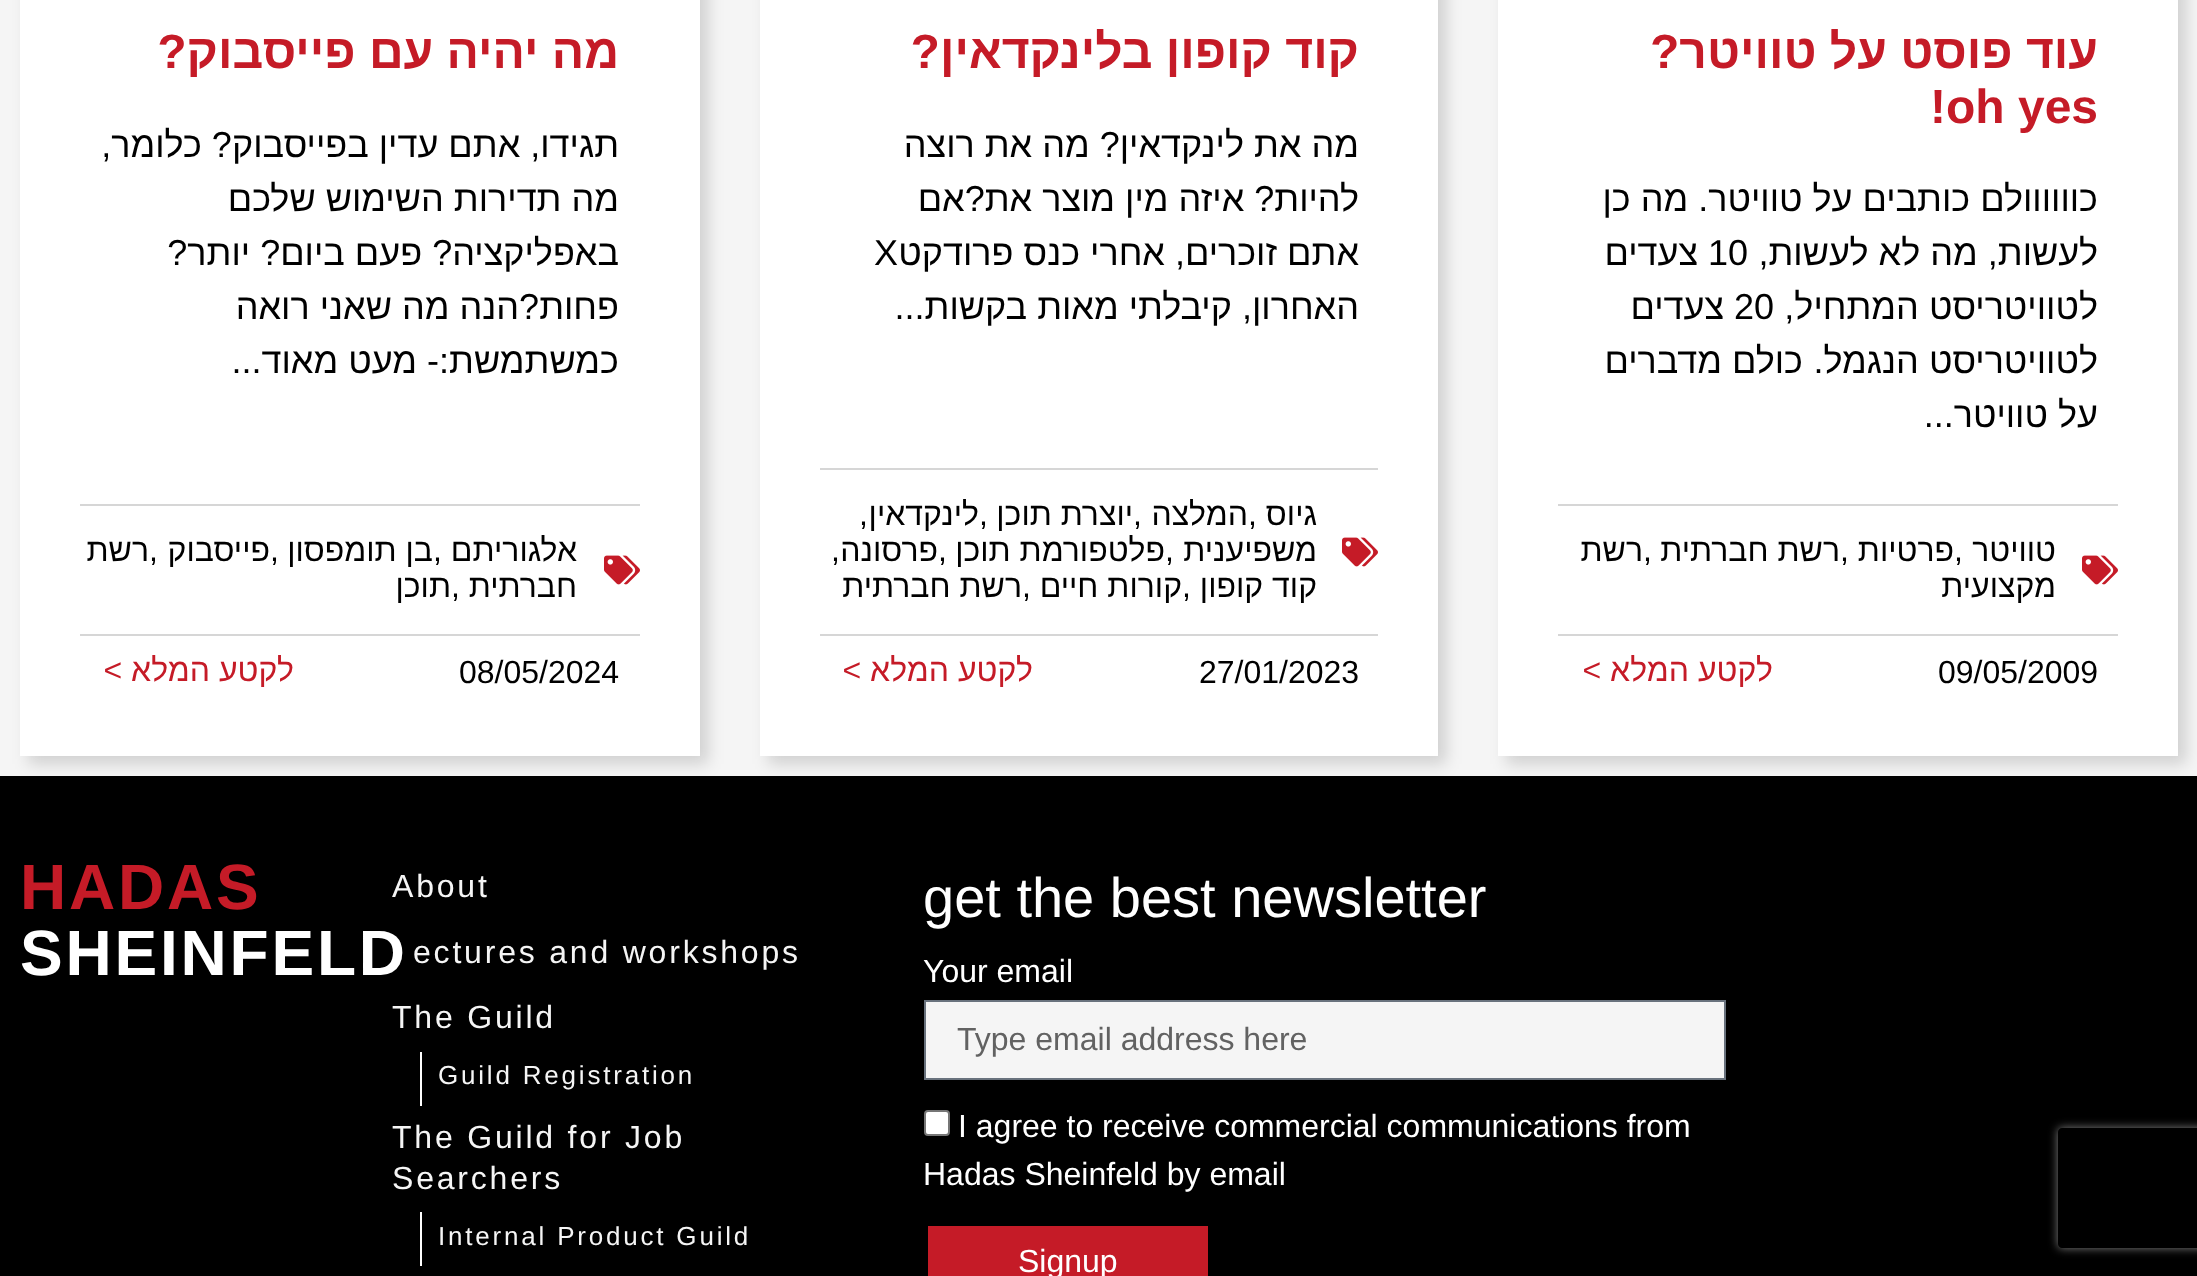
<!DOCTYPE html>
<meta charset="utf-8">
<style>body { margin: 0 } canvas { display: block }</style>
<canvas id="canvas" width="2197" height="1276"></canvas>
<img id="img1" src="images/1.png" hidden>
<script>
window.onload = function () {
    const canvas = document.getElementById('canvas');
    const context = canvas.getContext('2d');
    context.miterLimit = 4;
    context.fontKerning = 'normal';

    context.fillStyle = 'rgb(245, 245, 245)';
    context.fillRect(0, 0, 2197, 1276);
    context.fillStyle = 'rgba(0, 0, 0, 0.15)';
    context.filter = 'blur(8px)';
    context.beginPath();
    context.rect(1506, -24, 680, 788);
    context.fill();
    context.filter = 'none';
    context.fillStyle = 'rgb(255, 255, 255)';
    context.fillRect(1498, 0, 680, 756);
    context.fillStyle = 'rgb(214, 214, 214)';
    context.fillRect(1558, 504, 560, 2);
    context.drawImage(document.getElementById('img1'), 2082, 555, 36, 30);
    context.fillRect(1558, 634, 560, 2);
    context.fillStyle = 'rgba(0, 0, 0, 0.15)';
    context.filter = 'blur(8px)';
    context.beginPath();
    context.rect(768, -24, 678, 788);
    context.fill();
    context.filter = 'none';
    context.fillStyle = 'rgb(255, 255, 255)';
    context.fillRect(760, 0, 678, 756);
    context.fillStyle = 'rgb(214, 214, 214)';
    context.fillRect(820, 468, 558, 2);
    context.drawImage(document.getElementById('img1'), 1342, 537, 36, 30);
    context.fillRect(820, 634, 558, 2);
    context.fillStyle = 'rgba(0, 0, 0, 0.15)';
    context.filter = 'blur(8px)';
    context.beginPath();
    context.rect(28, -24, 680, 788);
    context.fill();
    context.filter = 'none';
    context.fillStyle = 'rgb(255, 255, 255)';
    context.fillRect(20, 0, 680, 756);
    context.fillStyle = 'rgb(214, 214, 214)';
    context.fillRect(80, 504, 560, 2);
    context.drawImage(document.getElementById('img1'), 604, 555, 36, 30);
    context.fillRect(80, 634, 560, 2);
    context.fillStyle = 'rgb(0, 0, 0)';
    context.fillRect(0, 776, 2197, 500);
    context.fillStyle = 'rgb(245, 245, 245)';
    context.beginPath();
    context.rect(925, 1001, 800, 78);
    context.fill();
    context.strokeStyle = 'rgb(105, 114, 125)';
    context.lineWidth = 2;
    context.stroke();
    context.save();
    context.beginPath();
    context.moveTo(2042, 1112);
    context.lineTo(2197, 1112);
    context.lineTo(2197, 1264);
    context.lineTo(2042, 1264);
    context.closePath();
    context.moveTo(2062, 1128);
    context.lineTo(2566, 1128);
    context.bezierCurveTo(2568, 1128, 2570, 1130, 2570, 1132);
    context.lineTo(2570, 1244);
    context.bezierCurveTo(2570, 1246, 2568, 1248, 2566, 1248);
    context.lineTo(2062, 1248);
    context.bezierCurveTo(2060, 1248, 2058, 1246, 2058, 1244);
    context.lineTo(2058, 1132);
    context.bezierCurveTo(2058, 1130, 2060, 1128, 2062, 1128);
    context.closePath();
    context.clip('evenodd');
    context.fillStyle = 'rgb(128, 128, 128)';
    context.filter = 'blur(5px)';
    context.beginPath();
    context.roundRect(2058, 1128, 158, 120, 4);
    context.fill();
    context.filter = 'none';
    context.restore();
    context.fillStyle = 'rgb(255, 255, 255)';
    context.beginPath();
    context.roundRect(925, 1111, 24, 24, 3);
    context.fill();
    context.strokeStyle = 'rgb(118, 118, 118)';
    context.stroke();
    context.fillStyle = 'rgb(197, 27, 39)';
    context.fillRect(928, 1226, 280, 50);
    context.fillStyle = 'rgb(255, 255, 255)';
    context.fillRect(420, 1052, 2, 54);
    context.fillRect(420, 1212, 2, 54);
    context.direction = 'rtl';
    context.font = 'bold 48px Liberation Sans';
    context.fillStyle = 'rgb(197, 27, 39)';
    context.fillText('עוד פוסט על טוויטר?', 2098, 68);
    context.direction = 'ltr';
    context.fillText('!oh yes', 1930, 123);
    context.direction = 'rtl';
    context.font = '36px Liberation Sans';
    context.fillStyle = 'rgb(0, 0, 0)';
    context.fillText('כוווווולם כותבים על טוויטר. מה כן', 2098, 211);
    context.fillText('לעשות, מה לא לעשות,', 2098, 265);
    context.direction = 'ltr';
    context.fillText('10', 1708, 265);
    context.direction = 'rtl';
    context.fillText('צעדים', 1698, 265);
    context.fillText('לטוויטריסט המתחיל,', 2098, 319);
    context.direction = 'ltr';
    context.fillText('20', 1734, 319);
    context.direction = 'rtl';
    context.fillText('צעדים', 1724, 319);
    context.fillText('לטוויטריסט הנגמל.', 2098, 373);
    context.fillText('כולם מדברים', 1803, 373);
    context.fillText('על טוויטר...', 2098, 427);
    context.font = '32px Liberation Sans';
    context.fillText('טוויטר', 2056, 561);
    context.direction = 'ltr';
    context.fillText(',', 1954, 561);
    context.direction = 'rtl';
    context.fillText('פרטיות', 1954, 561);
    context.direction = 'ltr';
    context.fillText(',', 1840, 561);
    context.direction = 'rtl';
    context.fillText('רשת חברתית', 1840, 561);
    context.direction = 'ltr';
    context.fillText(',', 1643, 561);
    context.direction = 'rtl';
    context.fillText('רשת', 1643, 561);
    context.fillText('מקצועית', 2056, 597);
    context.direction = 'ltr';
    context.fillText('09/05/2009', 1938, 683);
    context.direction = 'rtl';
    context.fillStyle = 'rgb(197, 27, 39)';
    context.fillText('לקטע המלא >', 1773, 681);
    context.font = 'bold 48px Liberation Sans';
    context.fillText('קוד קופון בלינקדאין?', 1359, 68);
    context.font = '36px Liberation Sans';
    context.fillStyle = 'rgb(0, 0, 0)';
    context.fillText('מה את לינקדאין? מה את רוצה', 1359, 157);
    context.fillText('להיות? איזה מין מוצר את?אם', 1359, 211);
    context.fillText('אתם זוכרים, אחרי כנס פרודקט', 1359, 265);
    context.direction = 'ltr';
    context.fillText('X', 874, 265);
    context.direction = 'rtl';
    context.fillText('האחרון, קיבלתי מאות בקשות...', 1359, 319);
    context.font = '32px Liberation Sans';
    context.fillText('גיוס', 1317, 525);
    context.direction = 'ltr';
    context.fillText(',', 1248, 525);
    context.direction = 'rtl';
    context.fillText('המלצה', 1248, 525);
    context.direction = 'ltr';
    context.fillText(',', 1133, 525);
    context.direction = 'rtl';
    context.fillText('יוצרת תוכן', 1133, 525);
    context.direction = 'ltr';
    context.fillText(',', 979, 525);
    context.direction = 'rtl';
    context.fillText('לינקדאין', 979, 525);
    context.direction = 'ltr';
    context.fillText(',', 859, 525);
    context.direction = 'rtl';
    context.fillText('משפיענית', 1317, 561);
    context.direction = 'ltr';
    context.fillText(',', 1165, 561);
    context.direction = 'rtl';
    context.fillText('פלטפורמת תוכן', 1165, 561);
    context.direction = 'ltr';
    context.fillText(',', 938, 561);
    context.direction = 'rtl';
    context.fillText('פרסונה', 938, 561);
    context.direction = 'ltr';
    context.fillText(',', 831, 561);
    context.direction = 'rtl';
    context.fillText('קוד קופון', 1317, 597);
    context.direction = 'ltr';
    context.fillText(',', 1182, 597);
    context.direction = 'rtl';
    context.fillText('קורות חיים', 1182, 597);
    context.direction = 'ltr';
    context.fillText(',', 1022, 597);
    context.direction = 'rtl';
    context.fillText('רשת חברתית', 1022, 597);
    context.direction = 'ltr';
    context.fillText('27/01/2023', 1199, 683);
    context.direction = 'rtl';
    context.fillStyle = 'rgb(197, 27, 39)';
    context.fillText('לקטע המלא >', 1033, 681);
    context.font = 'bold 48px Liberation Sans';
    context.fillText('מה יהיה עם פייסבוק?', 619, 68);
    context.font = '36px Liberation Sans';
    context.fillStyle = 'rgb(0, 0, 0)';
    context.fillText('תגידו, אתם עדין בפייסבוק? כלומר,', 619, 157);
    context.fillText('מה תדירות השימוש שלכם', 619, 211);
    context.fillText('באפליקציה? פעם ביום? יותר?', 619, 265);
    context.fillText('פחות?הנה מה שאני רואה', 619, 319);
    context.fillText('כמשתמשת:- מעט מאוד...', 619, 373);
    context.font = '32px Liberation Sans';
    context.fillText('אלגוריתם', 577, 561);
    context.direction = 'ltr';
    context.fillText(',', 433, 561);
    context.direction = 'rtl';
    context.fillText('בן תומפסון', 433, 561);
    context.direction = 'ltr';
    context.fillText(',', 270, 561);
    context.direction = 'rtl';
    context.fillText('פייסבוק', 270, 561);
    context.direction = 'ltr';
    context.fillText(',', 149, 561);
    context.direction = 'rtl';
    context.fillText('רשת', 149, 561);
    context.fillText('חברתית', 577, 597);
    context.direction = 'ltr';
    context.fillText(',', 451, 597);
    context.direction = 'rtl';
    context.fillText('תוכן', 451, 597);
    context.direction = 'ltr';
    context.fillText('08/05/2024', 459, 683);
    context.direction = 'rtl';
    context.fillStyle = 'rgb(197, 27, 39)';
    context.fillText('לקטע המלא >', 294, 681);
    context.direction = 'ltr';
    context.font = '56px Liberation Sans';
    context.fillStyle = 'rgb(255, 255, 255)';
    context.fillText('get the best newsletter', 923, 917);
    context.font = '32px Liberation Sans';
    context.fillText('Your email', 923, 982);
    context.fillStyle = 'rgb(98, 98, 98)';
    context.fillText('Type email address here', 957, 1050);
    context.fillStyle = 'rgb(255, 255, 255)';
    context.fillText('I agree to receive commercial communications from', 958, 1137);
    context.fillText('Hadas Sheinfeld by email', 923, 1185);
    context.fillText('Signup', 1018, 1272);
    context.letterSpacing = '2.8px';
    context.fillStyle = 'rgb(245, 245, 245)';
    context.fillText('About', 392, 897);
    context.fillText('ectures and workshops', 413, 963);
    context.fillText('The Guild', 392, 1028);
    context.font = '26px Liberation Sans';
    context.fillText('Guild Registration', 438, 1084);
    context.font = '32px Liberation Sans';
    context.fillText('The Guild for Job', 392, 1148);
    context.fillText('Searchers', 392, 1189);
    context.font = '26px Liberation Sans';
    context.fillText('Internal Product Guild', 438, 1245);
    context.font = 'bold 64px Liberation Sans';
    context.fillStyle = 'rgb(197, 27, 39)';
    context.fillText('HADAS', 20, 909);
    context.fillStyle = 'rgb(255, 255, 255)';
    context.fillText('SHEINFELD', 20, 975);
};
</script>
